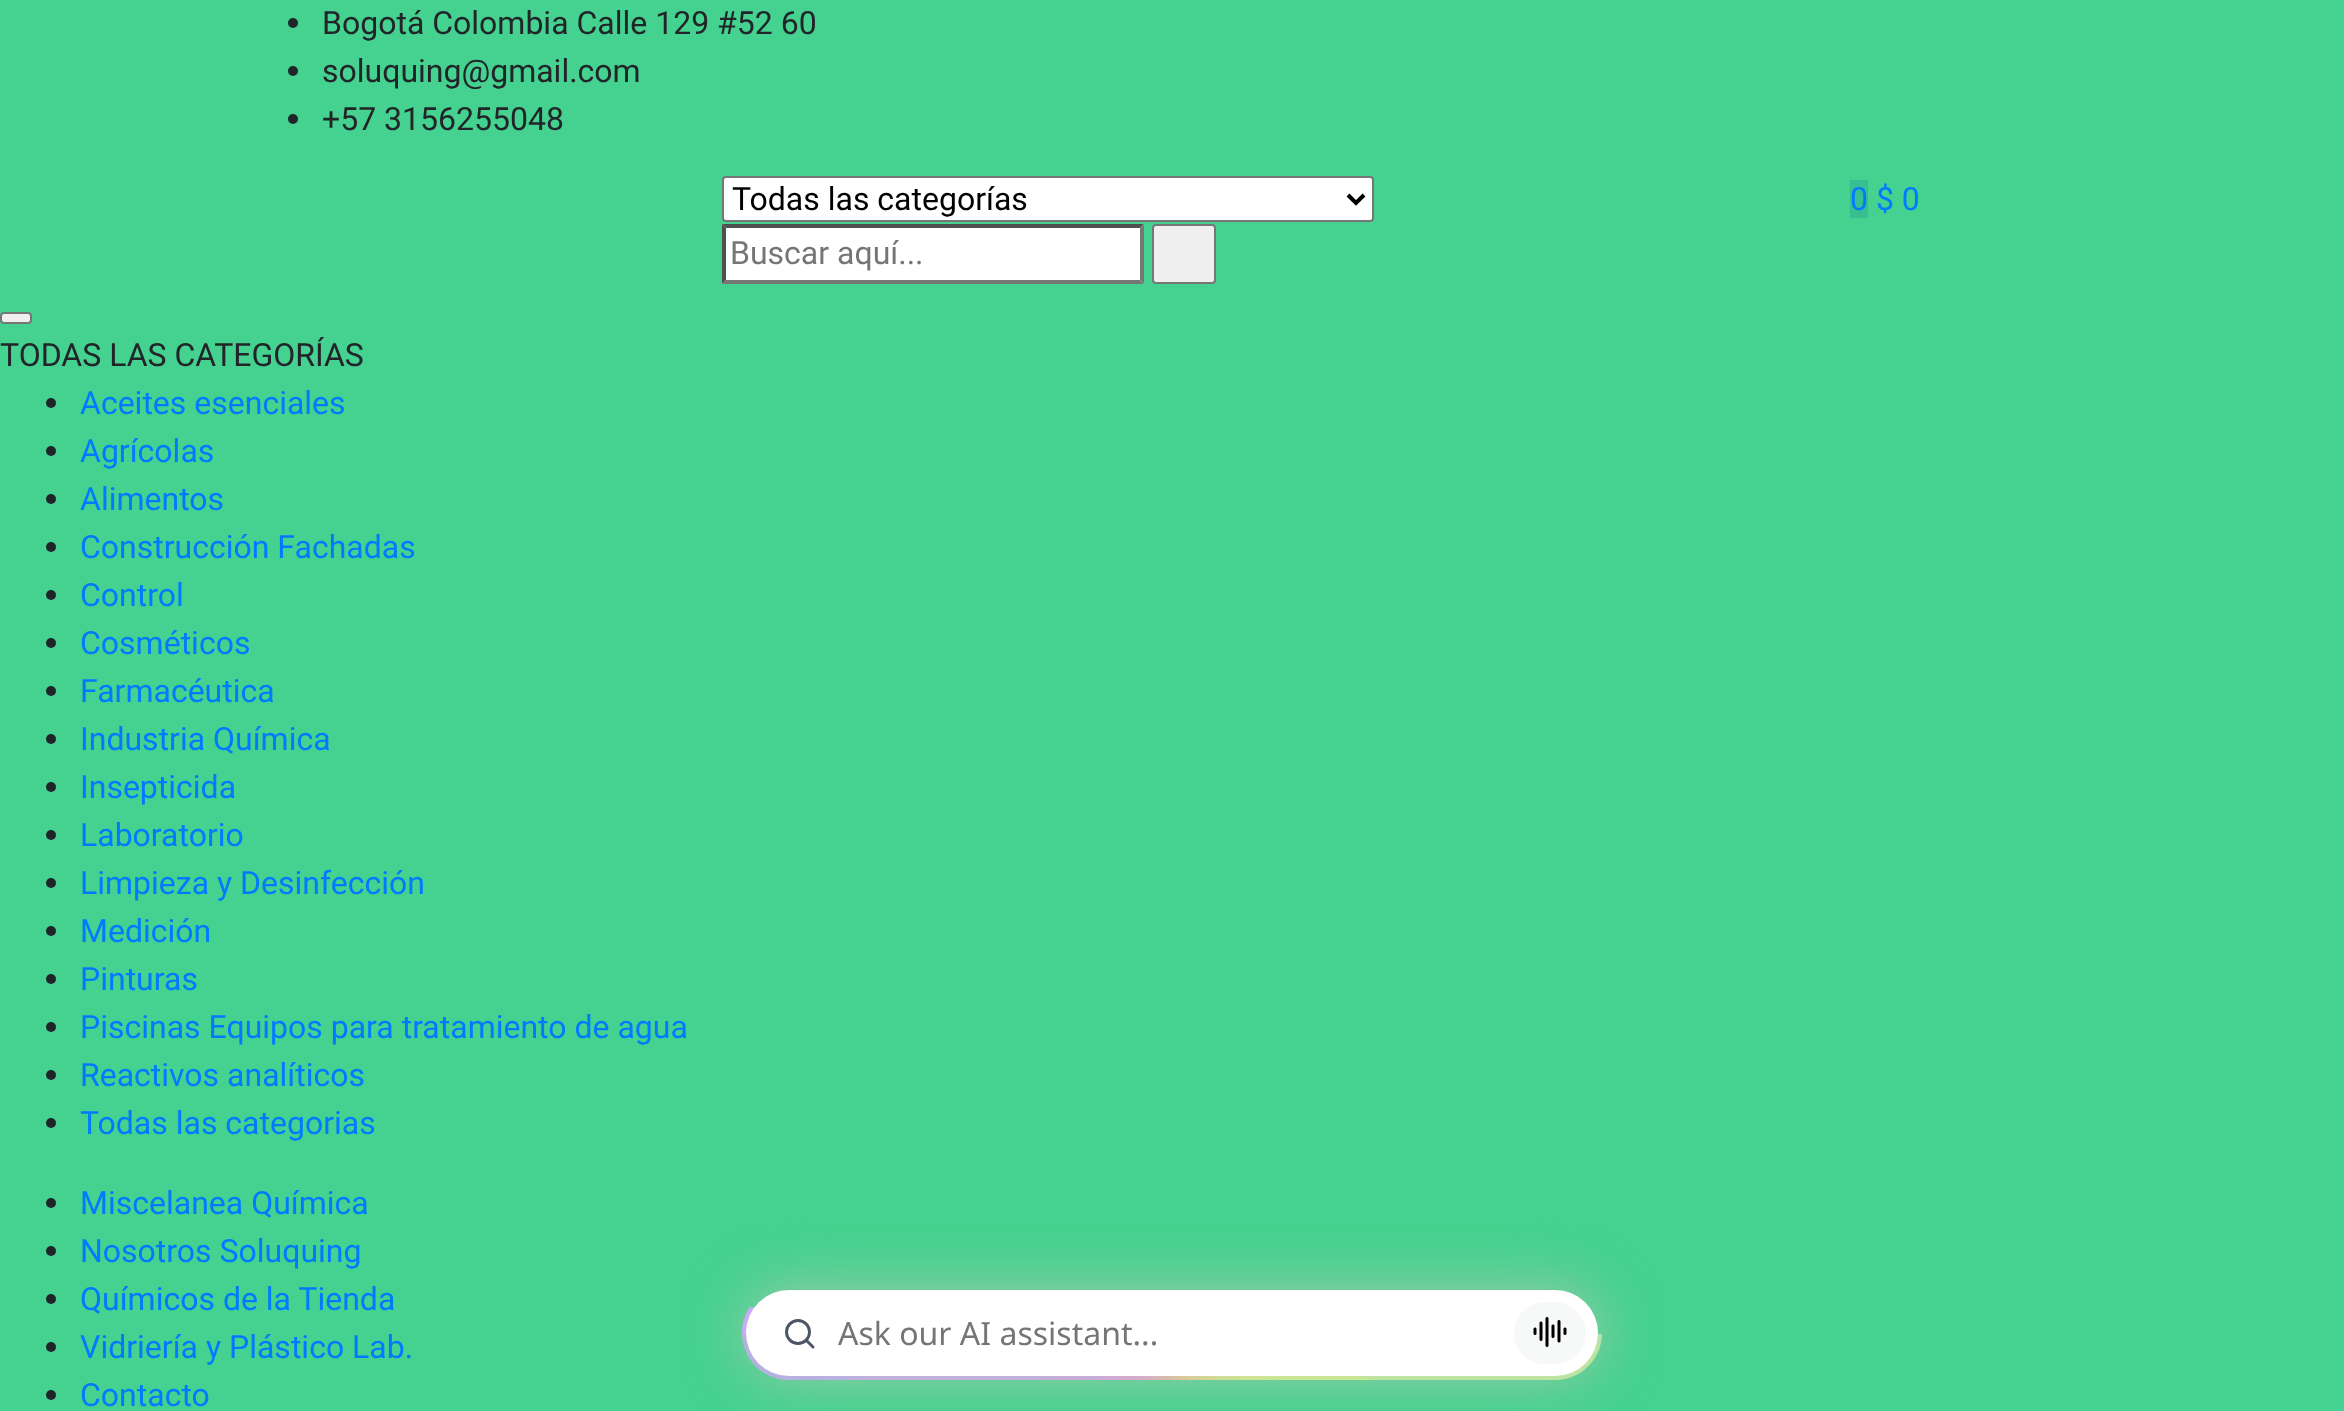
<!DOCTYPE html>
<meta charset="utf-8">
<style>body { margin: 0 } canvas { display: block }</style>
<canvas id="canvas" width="2344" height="1411"></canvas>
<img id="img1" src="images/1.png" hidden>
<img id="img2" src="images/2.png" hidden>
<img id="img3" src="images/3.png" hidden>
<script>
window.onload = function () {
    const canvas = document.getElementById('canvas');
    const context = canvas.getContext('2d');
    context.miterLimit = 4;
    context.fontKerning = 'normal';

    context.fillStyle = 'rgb(69, 209, 143)';
    context.fillRect(0, 0, 2344, 1411);
    context.fillStyle = 'rgb(33, 37, 41)';
    context.beginPath();
    context.arc(293, 23, 5, 0, 2 * Math.PI);
    context.fill();
    context.beginPath();
    context.arc(293, 71, 5, 0, 2 * Math.PI);
    context.fill();
    context.beginPath();
    context.arc(293, 119, 5, 0, 2 * Math.PI);
    context.fill();
    context.fillStyle = 'rgb(255, 255, 255)';
    context.beginPath();
    context.roundRect(723, 177, 650, 44, 3);
    context.fill();
    context.strokeStyle = 'rgb(118, 118, 118)';
    context.lineWidth = 2;
    context.stroke();
    context.beginPath();
    context.moveTo(1348, 195);
    context.lineTo(1356, 203);
    context.lineTo(1364, 195);
    context.strokeStyle = 'rgb(0, 0, 0)';
    context.lineWidth = 4;
    context.stroke();
    context.fillRect(722, 224, 422, 60);
    context.fillStyle = 'rgb(79, 79, 79)';
    context.beginPath();
    context.moveTo(722, 224);
    context.lineTo(1144, 224);
    context.lineTo(1140, 228);
    context.lineTo(726, 228);
    context.closePath();
    context.fill();
    context.fillStyle = 'rgb(118, 118, 118)';
    context.beginPath();
    context.moveTo(1144, 224);
    context.lineTo(1144, 284);
    context.lineTo(1140, 280);
    context.lineTo(1140, 228);
    context.closePath();
    context.fill();
    context.beginPath();
    context.moveTo(1144, 284);
    context.lineTo(722, 284);
    context.lineTo(726, 280);
    context.lineTo(1140, 280);
    context.closePath();
    context.fill();
    context.fillStyle = 'rgb(79, 79, 79)';
    context.beginPath();
    context.moveTo(722, 284);
    context.lineTo(722, 224);
    context.lineTo(726, 228);
    context.lineTo(726, 280);
    context.closePath();
    context.fill();
    context.fillStyle = 'rgb(239, 239, 239)';
    context.beginPath();
    context.roundRect(1153, 225, 62, 58, 3);
    context.fill();
    context.strokeStyle = 'rgb(118, 118, 118)';
    context.lineWidth = 2;
    context.stroke();
    context.fillStyle = 'rgb(55, 191, 145)';
    context.fillRect(1850, 180, 18, 38);
    context.fillStyle = 'rgb(239, 239, 239)';
    context.beginPath();
    context.roundRect(1, 313, 30, 10, 3);
    context.fill();
    context.stroke();
    context.fillStyle = 'rgb(33, 37, 41)';
    context.beginPath();
    context.arc(51, 403, 5, 0, 2 * Math.PI);
    context.fill();
    context.beginPath();
    context.arc(51, 451, 5, 0, 2 * Math.PI);
    context.fill();
    context.beginPath();
    context.arc(51, 499, 5, 0, 2 * Math.PI);
    context.fill();
    context.beginPath();
    context.arc(51, 547, 5, 0, 2 * Math.PI);
    context.fill();
    context.beginPath();
    context.arc(51, 595, 5, 0, 2 * Math.PI);
    context.fill();
    context.beginPath();
    context.arc(51, 643, 5, 0, 2 * Math.PI);
    context.fill();
    context.beginPath();
    context.arc(51, 691, 5, 0, 2 * Math.PI);
    context.fill();
    context.beginPath();
    context.arc(51, 739, 5, 0, 2 * Math.PI);
    context.fill();
    context.beginPath();
    context.arc(51, 787, 5, 0, 2 * Math.PI);
    context.fill();
    context.beginPath();
    context.arc(51, 835, 5, 0, 2 * Math.PI);
    context.fill();
    context.beginPath();
    context.arc(51, 883, 5, 0, 2 * Math.PI);
    context.fill();
    context.beginPath();
    context.arc(51, 931, 5, 0, 2 * Math.PI);
    context.fill();
    context.beginPath();
    context.arc(51, 979, 5, 0, 2 * Math.PI);
    context.fill();
    context.beginPath();
    context.arc(51, 1027, 5, 0, 2 * Math.PI);
    context.fill();
    context.beginPath();
    context.arc(51, 1075, 5, 0, 2 * Math.PI);
    context.fill();
    context.beginPath();
    context.arc(51, 1123, 5, 0, 2 * Math.PI);
    context.fill();
    context.beginPath();
    context.arc(51, 1203, 5, 0, 2 * Math.PI);
    context.fill();
    context.beginPath();
    context.arc(51, 1251, 5, 0, 2 * Math.PI);
    context.fill();
    context.beginPath();
    context.arc(51, 1299, 5, 0, 2 * Math.PI);
    context.fill();
    context.beginPath();
    context.arc(51, 1347, 5, 0, 2 * Math.PI);
    context.fill();
    context.beginPath();
    context.arc(51, 1395, 5, 0, 2 * Math.PI);
    context.fill();
    context.fillStyle = 'rgb(150, 203, 167)';
    context.filter = 'blur(28px)';
    context.beginPath();
    context.roundRect(742, 1286, 860, 94, 47);
    context.fill();
    context.filter = 'none';
    context.drawImage(document.getElementById('img1'), 742, 1307, 860, 73);
    context.drawImage(document.getElementById('img2'), 742, 1307, 860, 73);
    context.fillStyle = 'rgb(255, 255, 255)';
    context.beginPath();
    context.roundRect(746, 1290, 852, 86, 43);
    context.fill();
    context.beginPath();
    context.arc(798, 1332, 11.5, 0, 2 * Math.PI);
    context.strokeStyle = 'rgb(75, 85, 99)';
    context.lineWidth = 2.9;
    context.stroke();
    context.beginPath();
    context.moveTo(813, 1347);
    context.lineTo(806.5, 1340.5);
    context.lineCap = 'round';
    context.lineJoin = 'round';
    context.stroke();
    context.fillStyle = 'rgb(247, 248, 248)';
    context.beginPath();
    context.roundRect(1514, 1302, 72, 62, 31);
    context.fill();
    context.drawImage(document.getElementById('img3'), 1533, 1317, 34, 30);
    context.font = '32px Roboto';
    context.fillStyle = 'rgb(33, 37, 41)';
    context.fillText('Bogotá Colombia Calle 129 #52 60', 322, 34);
    context.fillText('soluquing@gmail.com', 322, 82);
    context.fillText('+57 3156255048', 322, 130);
    context.fillStyle = 'rgb(0, 0, 0)';
    context.fillText('Todas las categorías', 732, 210);
    context.fillStyle = 'rgb(117, 117, 117)';
    context.fillText('Buscar aquí...', 730, 264);
    context.fillStyle = 'rgb(0, 123, 255)';
    context.fillText('0 $ 0', 1850, 210);
    context.fillStyle = 'rgb(33, 37, 41)';
    context.fillText('TODAS LAS CATEGORÍAS', 0, 366);
    context.fillStyle = 'rgb(0, 123, 255)';
    context.fillText('Aceites esenciales', 80, 414);
    context.fillText('Agrícolas', 80, 462);
    context.fillText('Alimentos', 80, 510);
    context.fillText('Construcción Fachadas', 80, 558);
    context.fillText('Control', 80, 606);
    context.fillText('Cosméticos', 80, 654);
    context.fillText('Farmacéutica', 80, 702);
    context.fillText('Industria Química', 80, 750);
    context.fillText('Insepticida', 80, 798);
    context.fillText('Laboratorio', 80, 846);
    context.fillText('Limpieza y Desinfección', 80, 894);
    context.fillText('Medición', 80, 942);
    context.fillText('Pinturas', 80, 990);
    context.fillText('Piscinas Equipos para tratamiento de agua', 80, 1038);
    context.fillText('Reactivos analíticos', 80, 1086);
    context.fillText('Todas las categorias', 80, 1134);
    context.fillText('Miscelanea Química', 80, 1214);
    context.fillText('Nosotros Soluquing', 80, 1262);
    context.fillText('Químicos de la Tienda', 80, 1310);
    context.fillText('Vidriería y Plástico Lab.', 80, 1358);
    context.fillText('Contacto', 80, 1406);
    context.font = '32px Noto Sans';
    context.fillStyle = 'rgb(117, 117, 117)';
    context.fillText('Ask our AI assistant...', 838, 1345);
};
</script>
